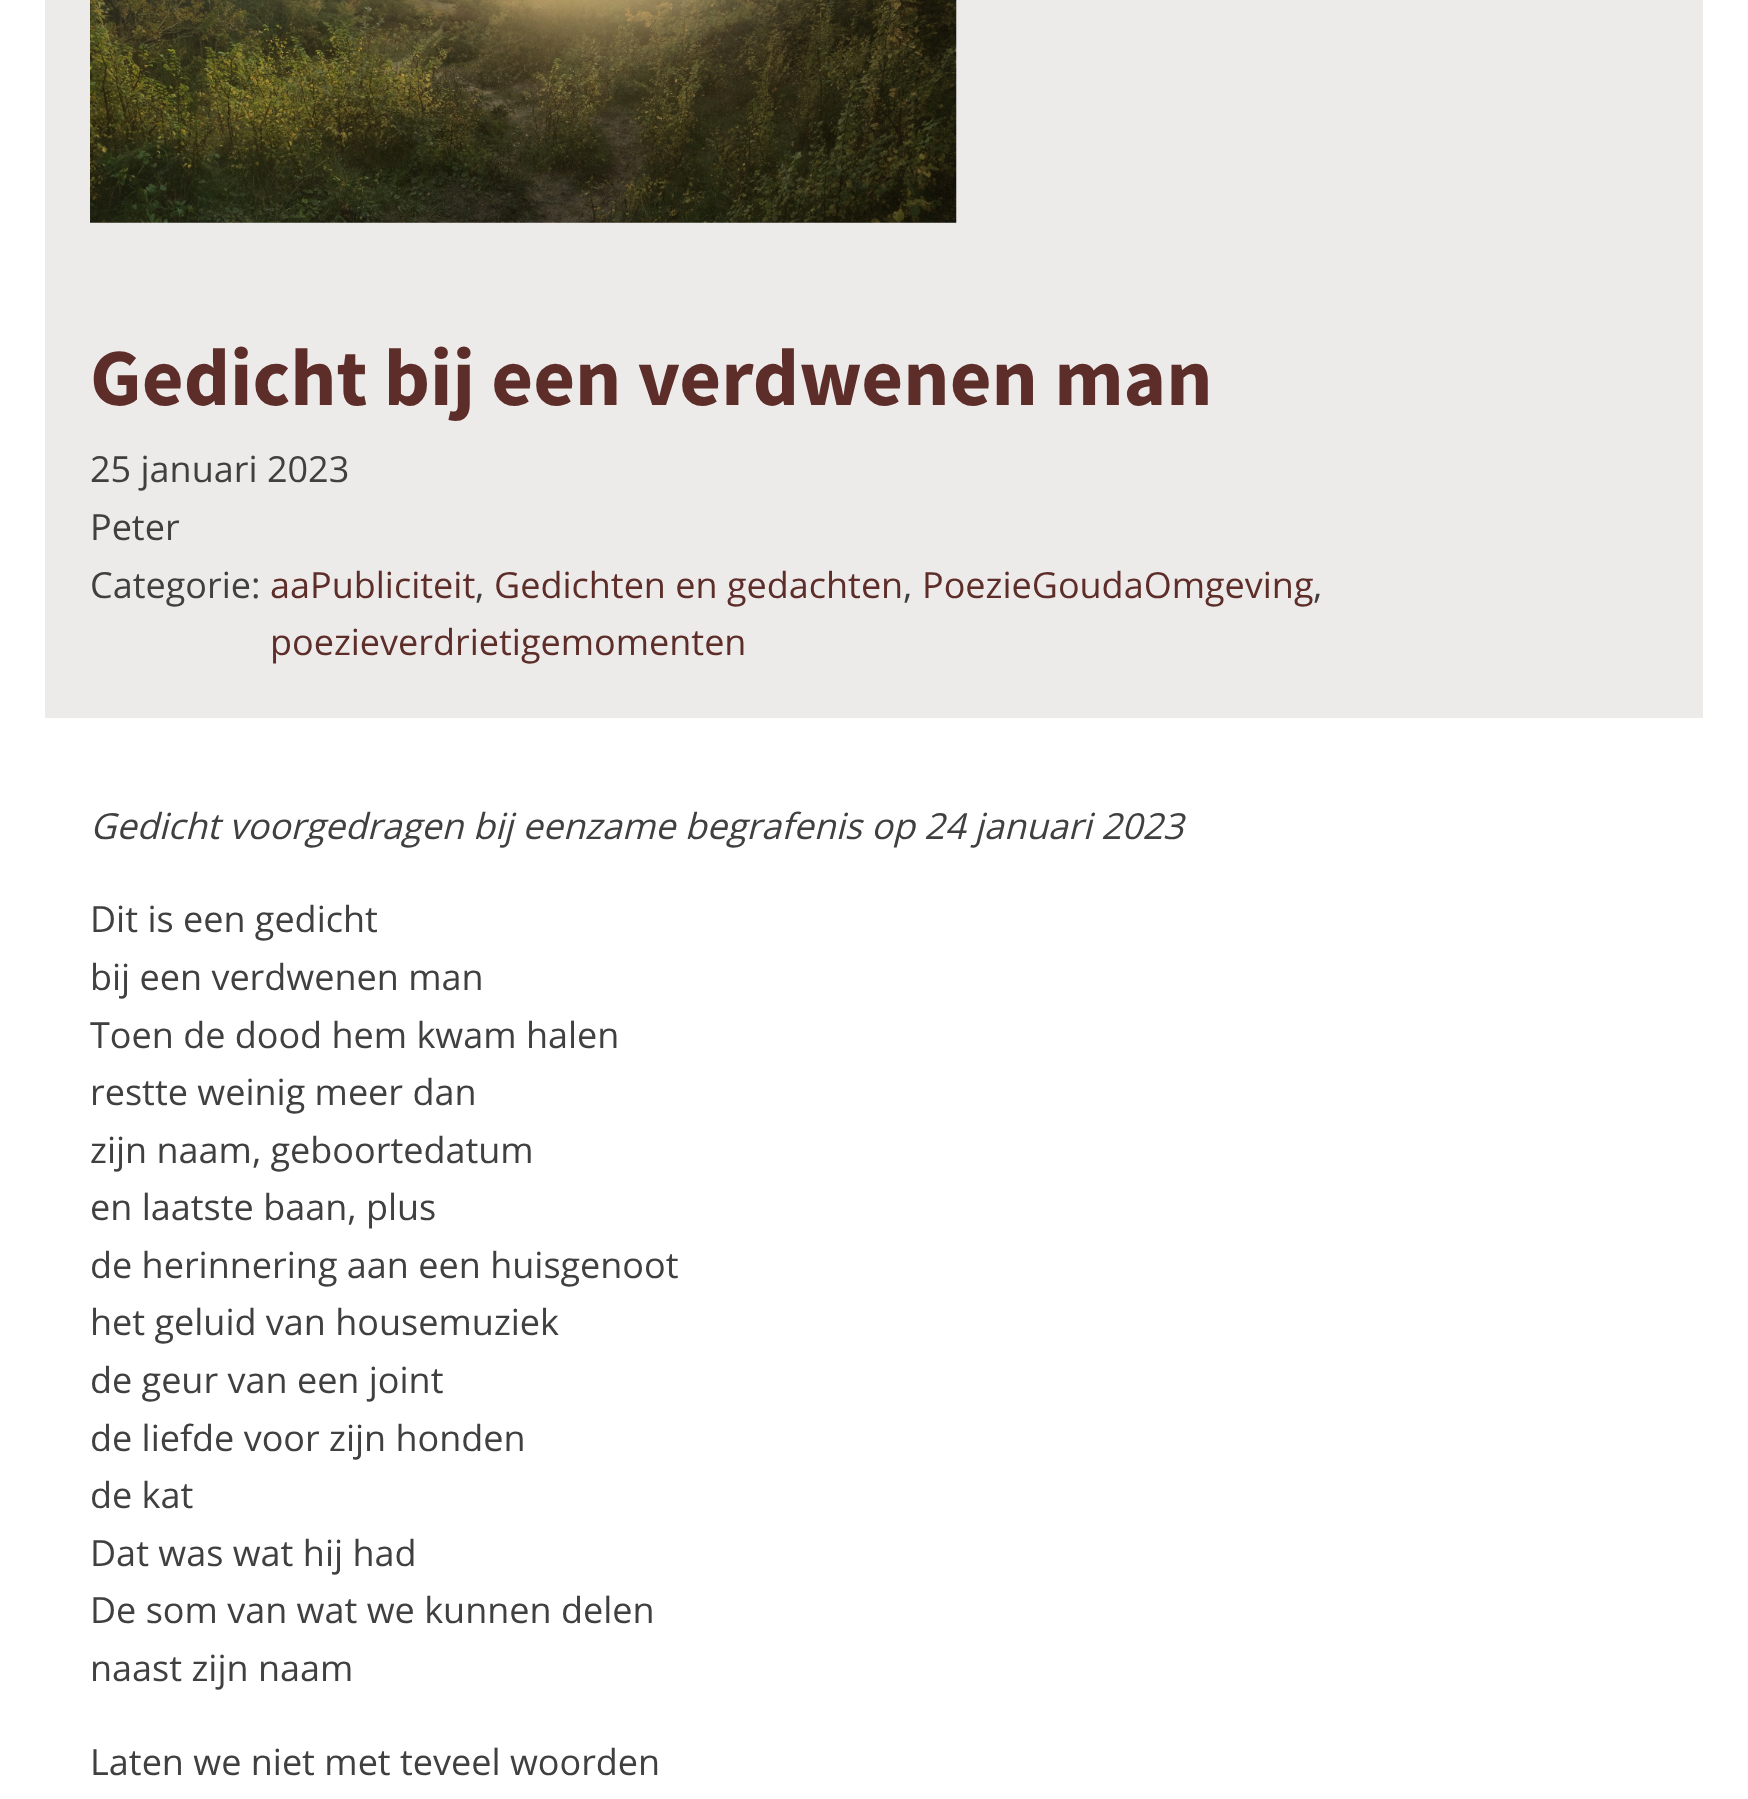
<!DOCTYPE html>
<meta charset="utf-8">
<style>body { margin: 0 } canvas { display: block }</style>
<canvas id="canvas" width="1748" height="1799"></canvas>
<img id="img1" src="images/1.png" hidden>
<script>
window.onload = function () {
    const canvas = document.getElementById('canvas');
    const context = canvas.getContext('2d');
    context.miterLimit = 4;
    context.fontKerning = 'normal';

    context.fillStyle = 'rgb(255, 255, 255)';
    context.fillRect(0, 0, 1748, 1799);
    context.fillStyle = 'rgb(237, 234, 234)';
    context.fillRect(45, 0, 1658, 718);
    context.drawImage(document.getElementById('img1'), 90, 0, 867, 223);
    context.font = 'bold 81px Source Sans Pro';
    context.fillStyle = 'rgb(93, 46, 41)';
    context.fillText('Gedicht bij een verdwenen man', 90, 405);
    context.font = '36px Open Sans';
    context.fillStyle = 'rgb(64, 64, 64)';
    context.fillText('25 januari 2023', 90, 482);
    context.fillText('Peter', 90, 540);
    context.fillText('Categorie:', 90, 598);
    context.fillStyle = 'rgb(93, 46, 41)';
    context.fillText('aaPubliciteit', 270, 598);
    context.fillStyle = 'rgb(64, 64, 64)';
    context.fillText(',', 475, 598);
    context.fillStyle = 'rgb(93, 46, 41)';
    context.fillText('Gedichten en gedachten', 494, 598);
    context.fillStyle = 'rgb(64, 64, 64)';
    context.fillText(',', 903, 598);
    context.fillStyle = 'rgb(93, 46, 41)';
    context.fillText('PoezieGoudaOmgeving', 922, 598);
    context.fillStyle = 'rgb(64, 64, 64)';
    context.fillText(',', 1313, 598);
    context.fillStyle = 'rgb(93, 46, 41)';
    context.fillText('poezieverdrietigemomenten', 270, 655);
    context.font = 'italic 36px Open Sans';
    context.fillStyle = 'rgb(64, 64, 64)';
    context.fillText('Gedicht voorgedragen bij eenzame begrafenis op 24 januari 2023', 90, 839);
    context.font = '36px Open Sans';
    context.fillText('Dit is een gedicht', 90, 932);
    context.fillText('bij een verdwenen man', 90, 990);
    context.fillText('Toen de dood hem kwam halen', 90, 1048);
    context.fillText('restte weinig meer dan', 90, 1105);
    context.fillText('zijn naam, geboortedatum', 90, 1163);
    context.fillText('en laatste baan, plus', 90, 1220);
    context.fillText('de herinnering aan een huisgenoot', 90, 1278);
    context.fillText('het geluid van housemuziek', 90, 1335);
    context.fillText('de geur van een joint', 90, 1393);
    context.fillText('de liefde voor zijn honden', 90, 1451);
    context.fillText('de kat', 90, 1508);
    context.fillText('Dat was wat hij had', 90, 1566);
    context.fillText('De som van wat we kunnen delen', 90, 1623);
    context.fillText('naast zijn naam', 90, 1681);
    context.fillText('Laten we niet met teveel woorden', 90, 1775);
};
</script>
